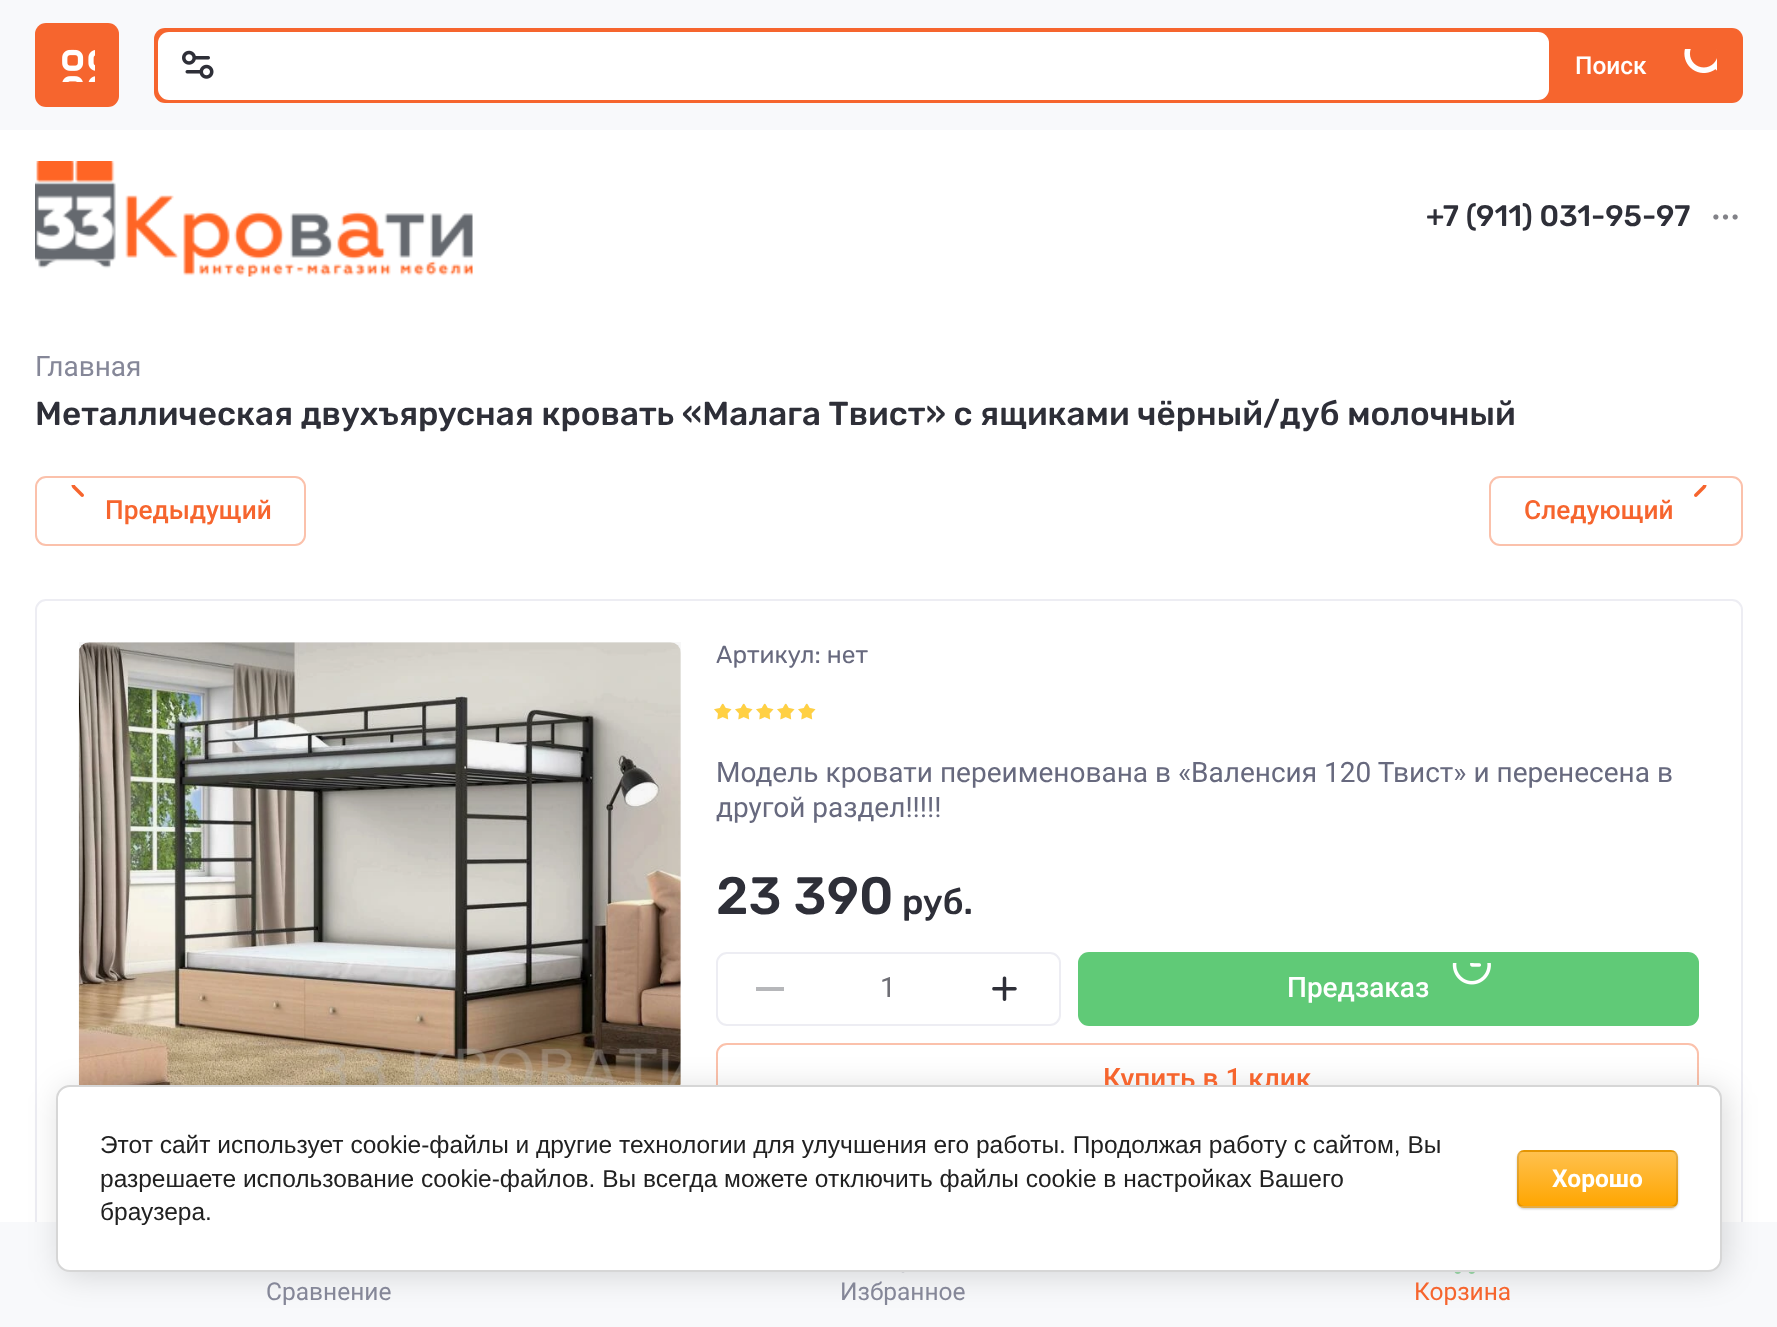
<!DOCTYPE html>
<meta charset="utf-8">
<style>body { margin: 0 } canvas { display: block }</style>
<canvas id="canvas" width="1777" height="1327"></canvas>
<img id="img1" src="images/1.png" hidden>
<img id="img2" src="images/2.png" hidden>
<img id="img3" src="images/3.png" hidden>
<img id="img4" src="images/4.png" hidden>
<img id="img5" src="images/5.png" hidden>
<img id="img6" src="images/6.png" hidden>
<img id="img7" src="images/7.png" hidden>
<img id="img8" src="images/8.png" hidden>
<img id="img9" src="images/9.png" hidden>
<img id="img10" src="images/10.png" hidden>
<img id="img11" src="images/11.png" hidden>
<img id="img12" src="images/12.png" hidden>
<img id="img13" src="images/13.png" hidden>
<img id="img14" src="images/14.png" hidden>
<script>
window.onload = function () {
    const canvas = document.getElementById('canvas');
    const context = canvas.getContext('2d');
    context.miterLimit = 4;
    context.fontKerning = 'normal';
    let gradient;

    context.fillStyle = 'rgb(255, 255, 255)';
    context.fillRect(0, 0, 1777, 1327);
    context.fillStyle = 'rgb(248, 249, 251)';
    context.fillRect(0, 0, 1777, 130);
    context.fillStyle = 'rgb(246, 101, 46)';
    context.beginPath();
    context.roundRect(35, 23, 84, 84, 11);
    context.fill();
    context.drawImage(document.getElementById('img1'), 62, 49, 33, 33);
    context.beginPath();
    context.roundRect(154, 28, 1589, 75, 11);
    context.fill();
    context.fillStyle = 'rgb(255, 255, 255)';
    context.beginPath();
    context.roundRect(158, 32, 1391, 68, 11);
    context.fill();
    context.drawImage(document.getElementById('img2'), 182, 50, 32, 29);
    context.drawImage(document.getElementById('img3'), 1684, 49, 33, 24);
    context.drawImage(document.getElementById('img4'), 35, 161, 438, 116);
    context.drawImage(document.getElementById('img5'), 1713, 214, 25, 6);
    context.beginPath();
    context.roundRect(36, 600, 1706, 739, 10);
    context.strokeStyle = 'rgb(237, 237, 243)';
    context.lineWidth = 2;
    context.stroke();
    context.fillStyle = 'rgb(248, 249, 251)';
    context.fillRect(0, 1222, 1777, 105);
    context.drawImage(document.getElementById('img6'), 901, 1272, 4, 1);
    context.drawImage(document.getElementById('img7'), 1454, 1272, 21, 2);
    context.beginPath();
    context.roundRect(36, 477, 269, 68, 10);
    context.strokeStyle = 'rgb(251, 193, 171)';
    context.stroke();
    context.drawImage(document.getElementById('img8'), 71, 485, 13, 12);
    context.beginPath();
    context.roundRect(1490, 477, 252, 68, 10);
    context.stroke();
    context.drawImage(document.getElementById('img9'), 1694, 485, 13, 12);
    context.drawImage(document.getElementById('img10'), 78, 642, 603, 443);
    context.fillStyle = 'rgba(0, 0, 0, 0.03)';
    context.fillRect(79, 642, 602, 443);
    context.drawImage(document.getElementById('img11'), 714, 703, 101, 16);
    context.drawImage(document.getElementById('img12'), 714, 704, 102, 16);
    context.beginPath();
    context.roundRect(717, 953, 343, 72, 10);
    context.strokeStyle = 'rgb(237, 237, 243)';
    context.stroke();
    context.fillStyle = 'rgb(182, 183, 186)';
    context.fillRect(756, 987, 28, 4);
    context.drawImage(document.getElementById('img13'), 992, 976, 25, 25);
    context.fillStyle = 'rgb(96, 202, 119)';
    context.beginPath();
    context.roundRect(1078, 952, 621, 74, 11);
    context.fill();
    context.drawImage(document.getElementById('img14'), 1452, 963, 39, 22);
    context.beginPath();
    context.roundRect(717, 1044, 981, 72, 10);
    context.strokeStyle = 'rgb(251, 193, 171)';
    context.stroke();
    context.fillStyle = 'rgba(0, 0, 0, 0.14)';
    context.filter = 'blur(16px)';
    context.beginPath();
    context.roundRect(60, 1089, 1666, 187, 14);
    context.fill();
    context.filter = 'none';
    context.font = '500 24.5px Roboto';
    context.fillStyle = 'rgb(255, 255, 255)';
    context.fillText('Поиск', 1575, 74);
    context.font = '500 29.75px Rubik';
    context.fillStyle = 'rgb(46, 47, 56)';
    context.fillText('+7 (911) 031-95-97', 1426, 226);
    context.font = '24.5px Roboto';
    context.fillStyle = 'rgb(133, 135, 152)';
    context.fillText('Сравнение', 266, 1300);
    context.fillText('Избранное', 840, 1300);
    context.fillStyle = 'rgb(246, 101, 46)';
    context.fillText('Корзина', 1414, 1300);
    context.font = '28px Roboto';
    context.fillStyle = 'rgb(133, 135, 152)';
    context.fillText('Главная', 35, 376);
    context.font = '500 33.25px Rubik';
    context.fillStyle = 'rgb(46, 47, 56)';
    context.fillText('Металлическая двухъярусная кровать «Малага Твист» с ящиками чёрный/дуб молочный', 35, 425);
    context.font = '500 26.25px Roboto';
    context.fillStyle = 'rgb(246, 101, 46)';
    context.fillText('Предыдущий', 105, 519);
    context.fillText('Следующий', 1524, 519);
    context.font = '24.5px Rubik';
    context.fillStyle = 'rgb(103, 105, 126)';
    context.fillText('Артикул: нет', 716, 663);
    context.font = '28px Roboto';
    context.fillText('Модель кровати переименована в «Валенсия 120 Твист» и перенесена в', 716, 782);
    context.fillText('другой раздел!!!!!', 716, 817);
    context.font = '500 52.5px Rubik';
    context.fillStyle = 'rgb(46, 47, 56)';
    context.fillText('23 390', 716, 914);
    context.font = '500 35px Rubik';
    context.fillText('руб.', 902, 914);
    context.font = '28px Roboto';
    context.fillStyle = 'rgb(109, 109, 116)';
    context.fillText('1', 880, 997);
    context.font = '500 28px Roboto';
    context.fillStyle = 'rgb(255, 255, 255)';
    context.fillText('Предзаказ', 1287, 997);
    context.fillStyle = 'rgb(246, 101, 46)';
    context.fillText('Купить в 1 клик', 1103, 1088);
    context.fillStyle = 'rgb(255, 255, 255)';
    context.beginPath();
    context.roundRect(57, 1086, 1664, 185, 13);
    context.fill();
    context.strokeStyle = 'rgb(214, 214, 214)';
    context.stroke();
    context.font = '24.5px Liberation Sans';
    context.fillStyle = 'rgb(33, 33, 33)';
    context.fillText('Этот сайт использует cookie-файлы и другие технологии для улучшения его работы. Продолжая работу с сайтом, Вы', 100, 1153);
    context.fillText('разрешаете использование cookie-файлов. Вы всегда можете отключить файлы cookie в настройках Вашего', 100, 1187);
    context.fillText('браузера.', 100, 1220);
    context.fillStyle = 'rgba(0, 0, 0, 0.2)';
    context.filter = 'blur(1px)';
    context.beginPath();
    context.roundRect(1517, 1152, 161, 57, 7);
    context.fill();
    context.filter = 'none';
    context.save();
    context.beginPath();
    context.roundRect(1517, 1150, 161, 58, 7);
    context.clip();
    gradient = context.createLinearGradient(1598, 1097, 1598, 1152);
    gradient.addColorStop(0, 'rgb(255, 193, 78)');
    gradient.addColorStop(1, 'rgb(255, 166, 1)');
    context.fillStyle = gradient;
    context.fillRect(1517, 1150, 161, 2);
    gradient = context.createLinearGradient(1598, 1152, 1598, 1206);
    gradient.addColorStop(0, 'rgb(255, 193, 78)');
    gradient.addColorStop(1, 'rgb(255, 166, 1)');
    context.fillStyle = gradient;
    context.fillRect(1517, 1152, 161, 54);
    gradient = context.createLinearGradient(1598, 1206, 1598, 1260);
    gradient.addColorStop(0, 'rgb(255, 193, 78)');
    gradient.addColorStop(1, 'rgb(255, 166, 1)');
    context.fillStyle = gradient;
    context.fillRect(1517, 1206, 161, 2);
    context.restore();
    context.beginPath();
    context.roundRect(1518, 1151, 159, 56, 6);
    context.strokeStyle = 'rgba(0, 0, 0, 0.1)';
    context.stroke();
    context.font = 'bold 24.5px Roboto';
    context.fillStyle = 'rgb(255, 255, 255)';
    context.fillText('Хорошо', 1552, 1187);
};
</script>
